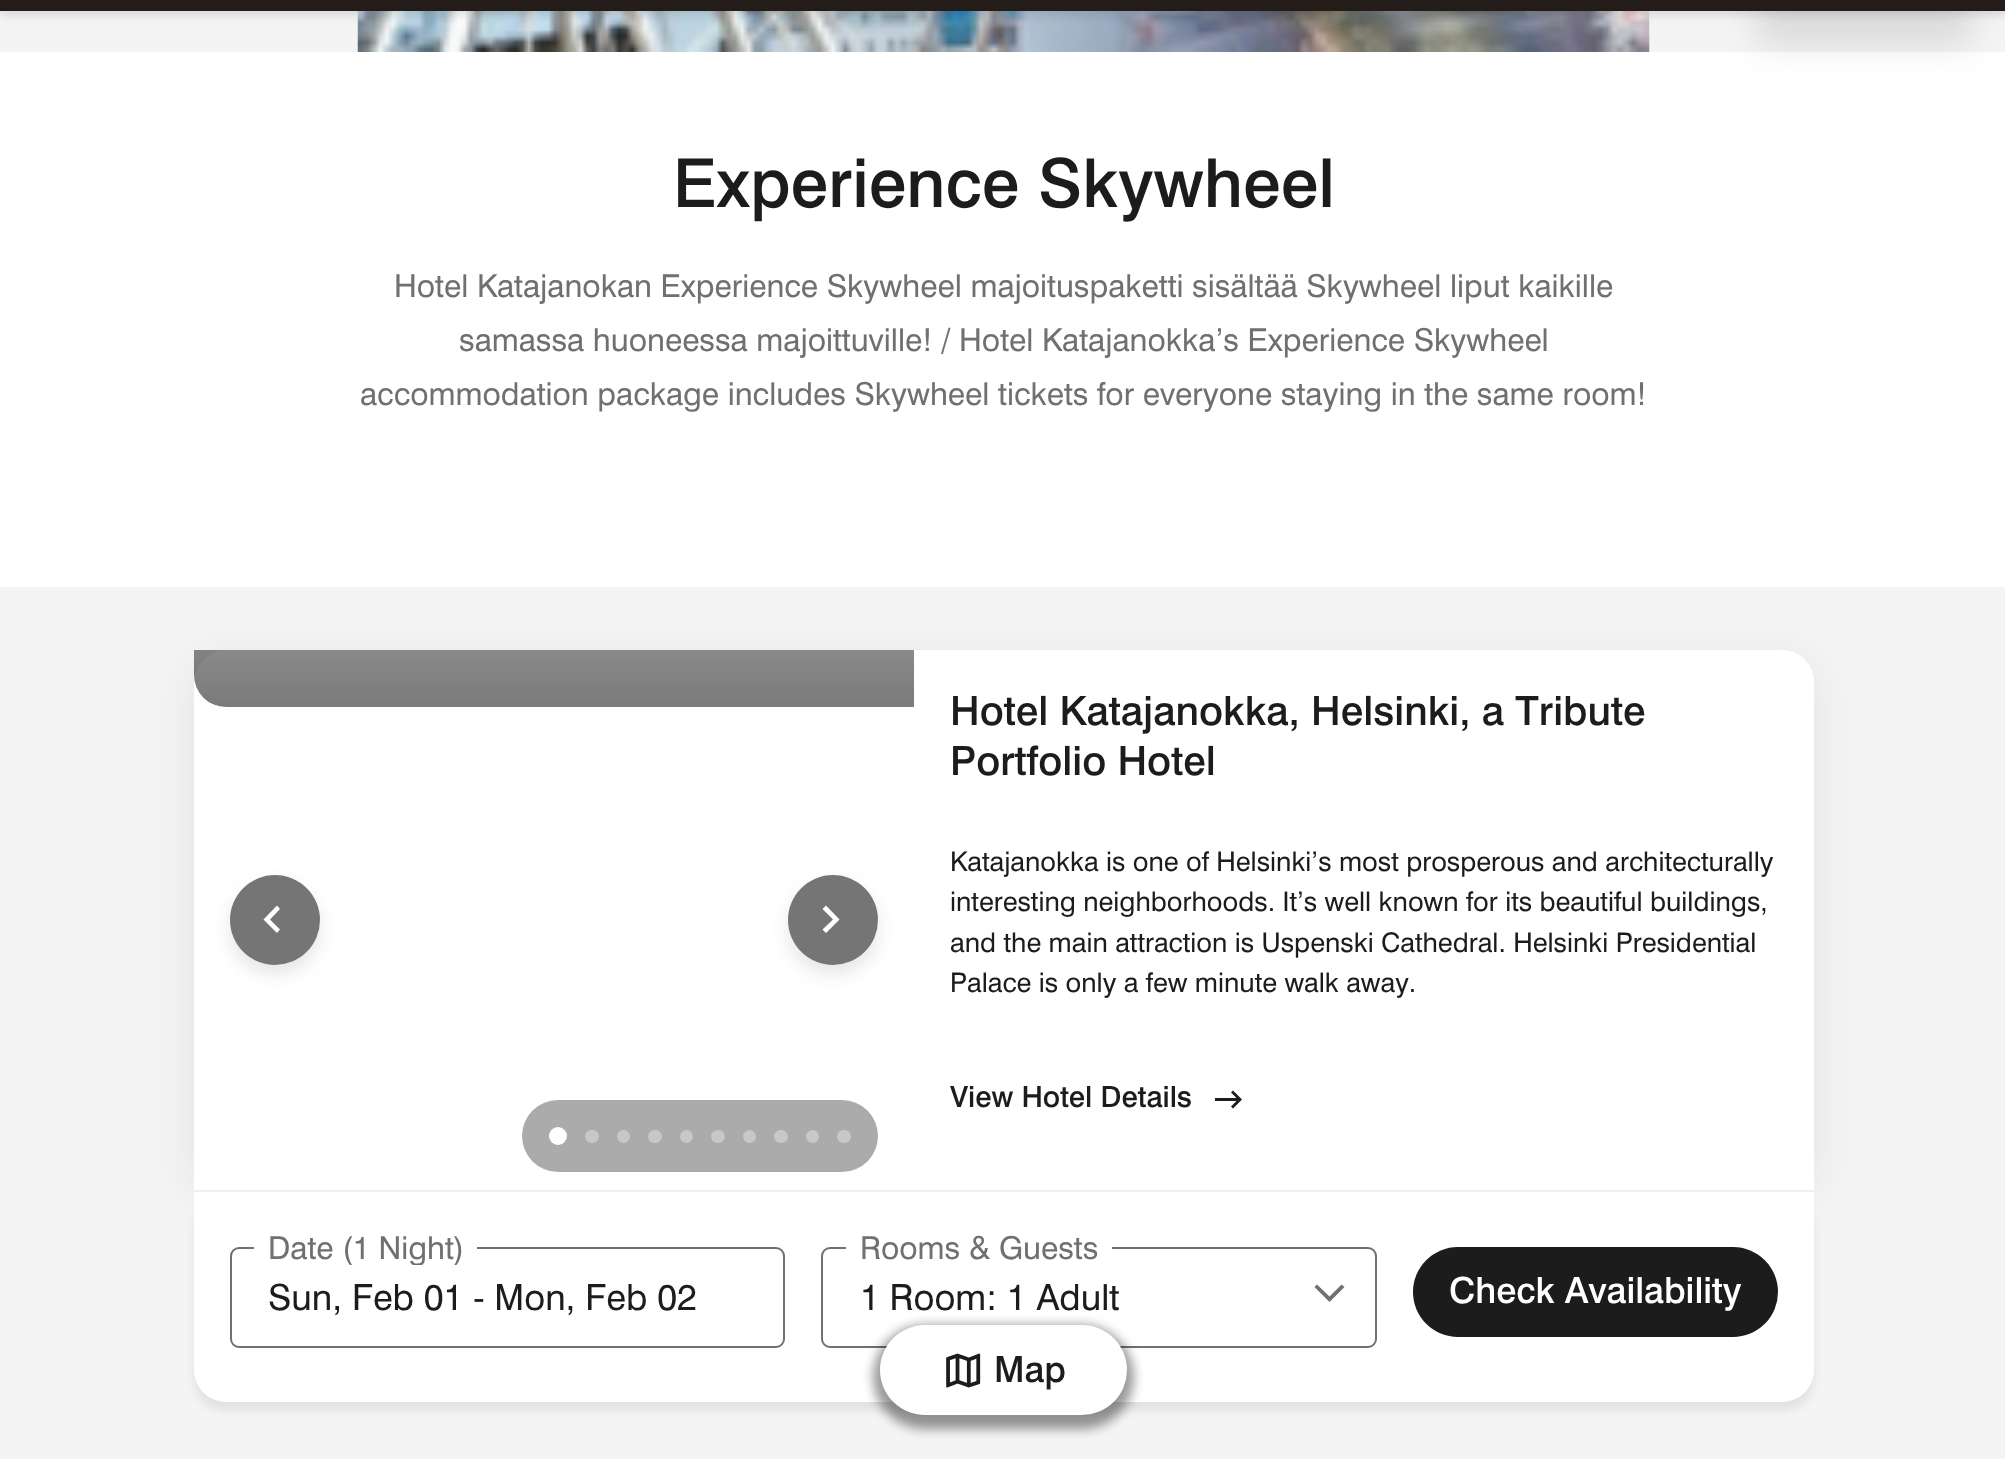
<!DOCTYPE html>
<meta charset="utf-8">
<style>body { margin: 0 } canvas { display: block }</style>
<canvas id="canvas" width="2005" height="1459"></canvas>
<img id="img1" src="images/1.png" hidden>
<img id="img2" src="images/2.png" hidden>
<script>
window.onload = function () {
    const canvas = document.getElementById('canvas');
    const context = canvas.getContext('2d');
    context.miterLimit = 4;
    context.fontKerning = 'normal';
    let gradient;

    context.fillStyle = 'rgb(255, 255, 255)';
    context.fillRect(0, 0, 2005, 1459);
    context.fillStyle = 'rgb(244, 244, 244)';
    context.fillRect(0, 11, 2005, 41);
    context.drawImage(document.getElementById('img1'), 357, 11, 1293, 41);
    context.fillStyle = 'rgba(0, 0, 0, 0.1)';
    context.filter = 'blur(4.5px)';
    context.beginPath();
    context.rect(0, -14, 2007, 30);
    context.fill();
    context.filter = 'none';
    context.filter = 'blur(17px)';
    context.beginPath();
    context.rect(1757, -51, 214, 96);
    context.fill();
    context.filter = 'none';
    context.fillStyle = 'rgb(35, 28, 25)';
    context.fillRect(0, 0, 2005, 11);
    context.fillStyle = 'rgb(244, 244, 244)';
    context.fillRect(0, 587, 2005, 872);
    context.fillStyle = 'rgba(0, 0, 0, 0.07)';
    context.filter = 'blur(22.5px)';
    context.beginPath();
    context.roundRect(194, 659, 1620, 540, 32);
    context.fill();
    context.filter = 'none';
    context.fillStyle = 'rgb(255, 255, 255)';
    context.beginPath();
    context.roundRect(194, 650, 1620, 540, [32, 32, 0, 0]);
    context.fill();
    gradient = context.createLinearGradient(554, 445, 554, 707);
    gradient.addColorStop(0, 'rgba(0, 0, 0, 0)');
    gradient.addColorStop(0.45, 'rgba(0, 0, 0, 0.37)');
    gradient.addColorStop(1, 'rgba(0, 0, 0, 0.52)');
    context.fillStyle = gradient;
    context.beginPath();
    context.roundRect(194, 650, 720, 57, [0, 0, 0, 32]);
    context.fill();
    context.save();
    context.beginPath();
    context.moveTo(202, 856);
    context.lineTo(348, 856);
    context.lineTo(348, 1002);
    context.lineTo(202, 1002);
    context.closePath();
    context.moveTo(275, 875);
    context.bezierCurveTo(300, 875, 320, 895, 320, 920);
    context.bezierCurveTo(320, 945, 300, 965, 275, 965);
    context.bezierCurveTo(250, 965, 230, 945, 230, 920);
    context.bezierCurveTo(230, 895, 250, 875, 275, 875);
    context.closePath();
    context.clip('evenodd');
    context.fillStyle = 'rgba(0, 0, 0, 0.1)';
    context.filter = 'blur(9px)';
    context.beginPath();
    context.roundRect(230, 884, 90, 90, 45);
    context.fill();
    context.filter = 'none';
    context.restore();
    context.fillStyle = 'rgba(0, 0, 0, 0.54)';
    context.beginPath();
    context.arc(275, 920, 45, 0, 2 * Math.PI);
    context.fill();
    context.fillStyle = 'rgb(255, 255, 255)';
    context.beginPath();
    context.moveTo(280, 929.5);
    context.lineTo(270, 919.5);
    context.lineTo(280, 909);
    context.lineTo(277, 905.5);
    context.lineTo(263.5, 919.5);
    context.lineTo(277, 933);
    context.closePath();
    context.fill();
    context.save();
    context.beginPath();
    context.moveTo(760, 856);
    context.lineTo(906, 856);
    context.lineTo(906, 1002);
    context.lineTo(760, 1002);
    context.closePath();
    context.moveTo(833, 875);
    context.bezierCurveTo(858, 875, 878, 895, 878, 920);
    context.bezierCurveTo(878, 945, 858, 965, 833, 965);
    context.bezierCurveTo(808, 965, 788, 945, 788, 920);
    context.bezierCurveTo(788, 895, 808, 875, 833, 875);
    context.closePath();
    context.clip('evenodd');
    context.fillStyle = 'rgba(0, 0, 0, 0.1)';
    context.filter = 'blur(9px)';
    context.beginPath();
    context.roundRect(788, 884, 90, 90, 45);
    context.fill();
    context.filter = 'none';
    context.restore();
    context.fillStyle = 'rgba(0, 0, 0, 0.54)';
    context.beginPath();
    context.arc(833, 920, 45, 0, 2 * Math.PI);
    context.fill();
    context.fillStyle = 'rgb(255, 255, 255)';
    context.beginPath();
    context.moveTo(822.5, 929.5);
    context.lineTo(833, 919.5);
    context.lineTo(822.5, 909);
    context.lineTo(826, 905.5);
    context.lineTo(839.5, 919.5);
    context.lineTo(826, 933);
    context.closePath();
    context.fill();
    context.fillStyle = 'rgb(171, 171, 171)';
    context.beginPath();
    context.roundRect(522, 1100, 356, 72, 36);
    context.fill();
    context.fillStyle = 'rgb(255, 255, 255)';
    context.beginPath();
    context.arc(558, 1136, 9, 0, 2 * Math.PI);
    context.fill();
    context.fillStyle = 'rgb(200, 200, 200)';
    context.beginPath();
    context.roundRect(585, 1130, 14, 13, 6.5);
    context.fill();
    context.beginPath();
    context.arc(623.5, 1136.5, 6.5, 0, 2 * Math.PI);
    context.fill();
    context.beginPath();
    context.roundRect(648, 1130, 14, 13, 6.5);
    context.fill();
    context.beginPath();
    context.arc(686.5, 1136.5, 6.5, 0, 2 * Math.PI);
    context.fill();
    context.beginPath();
    context.roundRect(711, 1130, 14, 13, 6.5);
    context.fill();
    context.beginPath();
    context.arc(749.5, 1136.5, 6.5, 0, 2 * Math.PI);
    context.fill();
    context.beginPath();
    context.roundRect(774, 1130, 14, 13, 6.5);
    context.fill();
    context.beginPath();
    context.arc(812.5, 1136.5, 6.5, 0, 2 * Math.PI);
    context.fill();
    context.beginPath();
    context.roundRect(837, 1130, 14, 13, 6.5);
    context.fill();
    context.fillStyle = 'rgb(28, 28, 28)';
    context.beginPath();
    context.moveTo(1215, 1098);
    context.lineTo(1236.5, 1098);
    context.lineTo(1231, 1092.5);
    context.lineTo(1233, 1090.5);
    context.lineTo(1242, 1099.5);
    context.lineTo(1233, 1108.5);
    context.lineTo(1231, 1106.5);
    context.lineTo(1236.5, 1101);
    context.lineTo(1215, 1101);
    context.closePath();
    context.fill();
    context.fillStyle = 'rgba(0, 0, 0, 0.07)';
    context.filter = 'blur(4.5px)';
    context.beginPath();
    context.roundRect(194, 1199, 1620, 212, 32);
    context.fill();
    context.filter = 'none';
    context.fillStyle = 'rgb(255, 255, 255)';
    context.beginPath();
    context.roundRect(194, 1190, 1620, 212, [0, 0, 32, 32]);
    context.fill();
    context.fillStyle = 'rgb(238, 238, 238)';
    context.fillRect(194, 1190, 1620, 2);
    context.beginPath();
    context.roundRect(231, 1248, 553, 99, 8);
    context.strokeStyle = 'rgb(112, 112, 112)';
    context.lineWidth = 2;
    context.stroke();
    context.fillStyle = 'rgb(255, 255, 255)';
    context.fillRect(254, 1247, 223, 2);
    context.beginPath();
    context.roundRect(822, 1248, 554, 99, 8);
    context.stroke();
    context.fillRect(846, 1247, 266, 2);
    context.fillStyle = 'rgb(112, 112, 112)';
    context.beginPath();
    context.moveTo(1317, 1284.5);
    context.lineTo(1314.5, 1287);
    context.lineTo(1329.5, 1302);
    context.lineTo(1344.5, 1287);
    context.lineTo(1341.5, 1284.5);
    context.lineTo(1329.5, 1296.5);
    context.closePath();
    context.fill();
    context.fillStyle = 'rgb(28, 28, 28)';
    context.beginPath();
    context.roundRect(1413, 1247, 365, 90, 45);
    context.fill();
    context.fillStyle = 'rgba(0, 0, 0, 0.4)';
    context.filter = 'blur(5.5px)';
    context.beginPath();
    context.roundRect(873, 1325, 261, 104, 52);
    context.fill();
    context.filter = 'none';
    context.fillStyle = 'rgb(255, 255, 255)';
    context.beginPath();
    context.roundRect(880, 1325, 247, 90, 45);
    context.fill();
    context.drawImage(document.getElementById('img2'), 946, 1353, 35, 35);
    context.font = '500 67.5px "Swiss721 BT"';
    context.fillStyle = 'rgb(28, 28, 28)';
    context.fillText('Experience Skywheel', 673, 207);
    context.font = '31.5px "Swiss721 BT"';
    context.fillStyle = 'rgb(112, 112, 112)';
    context.fillText('Hotel Katajanokan Experience Skywheel majoituspaketti sisältää Skywheel liput kaikille', 394, 297);
    context.fillText('samassa huoneessa majoittuville! / Hotel Katajanokka’s Experience Skywheel', 459, 351);
    context.fillText('accommodation package includes Skywheel tickets for everyone staying in the same room!', 360, 405);
    context.font = '500 40.5px "Swiss721 BT"';
    context.fillStyle = 'rgb(28, 28, 28)';
    context.fillText('Hotel Katajanokka, Helsinki, a Tribute', 950, 725);
    context.fillText('Portfolio Hotel', 950, 775);
    context.font = '27px "Swiss721 BT"';
    context.fillText('Katajanokka is one of Helsinki’s most prosperous and architecturally', 950, 871);
    context.fillText('interesting neighborhoods. It’s well known for its beautiful buildings,', 950, 911);
    context.fillText('and the main attraction is Uspenski Cathedral. Helsinki Presidential', 950, 952);
    context.fillText('Palace is only a few minute walk away.', 950, 992);
    context.font = '500 29.25px "Swiss721 BT"';
    context.fillText('View Hotel Details', 950, 1107);
    context.save();
    context.beginPath();
    context.rect(254, 1229, 223, 36);
    context.clip();
    context.font = '31.5px "Swiss721 BT"';
    context.fillStyle = 'rgb(112, 112, 112)';
    context.fillText('Date (1 Night)', 268, 1259);
    context.restore();
    context.font = '36px "Swiss721 BT"';
    context.fillText('Sun, Feb 01 - Mon, Feb 02', 268, 1310);
    context.font = '31.5px "Swiss721 BT"';
    context.fillStyle = 'rgb(112, 112, 112)';
    context.fillText('Rooms & Guests', 860, 1259);
    context.font = '36px "Swiss721 BT"';
    context.fillStyle = 'rgb(28, 28, 28)';
    context.fillText('1 Room: 1 Adult', 860, 1310);
    context.font = '500 36px "Swiss721 BT"';
    context.fillStyle = 'rgb(255, 255, 255)';
    context.fillText('Check Availability', 1449, 1303);
    context.fillStyle = 'rgb(28, 28, 28)';
    context.fillText('Map', 994, 1382);
};
</script>
